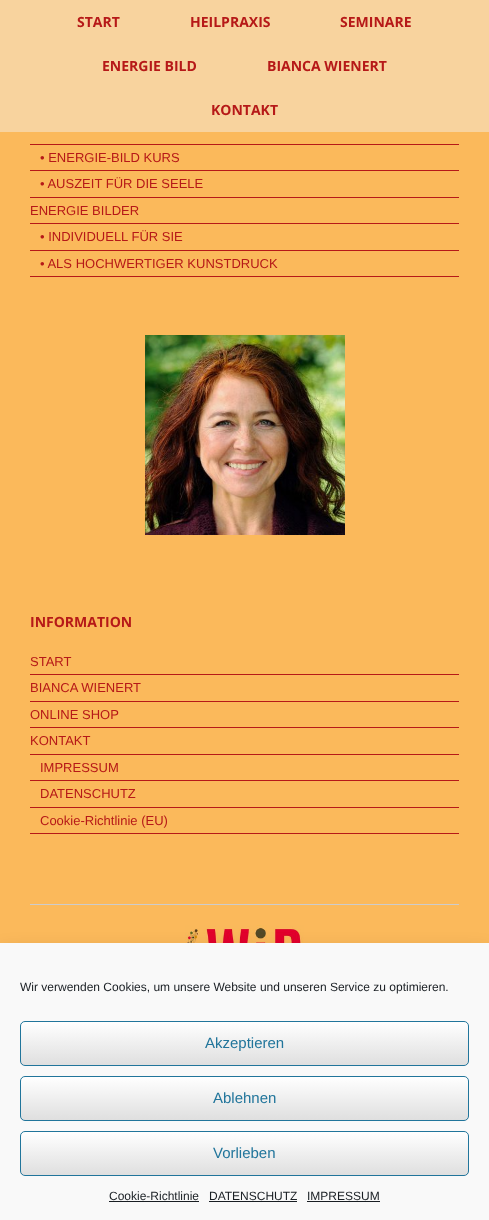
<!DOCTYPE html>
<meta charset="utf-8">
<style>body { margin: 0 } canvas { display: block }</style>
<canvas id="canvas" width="489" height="1220"></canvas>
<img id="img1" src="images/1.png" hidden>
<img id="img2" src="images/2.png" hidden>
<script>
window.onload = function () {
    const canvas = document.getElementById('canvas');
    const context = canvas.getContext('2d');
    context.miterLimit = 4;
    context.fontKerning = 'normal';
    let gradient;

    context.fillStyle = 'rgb(251, 185, 91)';
    context.fillRect(0, 0, 489, 1220);
    context.fillStyle = 'rgb(248, 211, 158)';
    context.fillRect(0, 0, 489, 132);
    context.fillStyle = 'rgb(182, 25, 24)';
    context.fillRect(30, 144, 429, 1);
    context.fillRect(30, 170, 429, 1);
    context.fillRect(30, 197, 429, 1);
    context.fillRect(30, 223, 429, 1);
    context.fillRect(30, 250, 429, 1);
    context.fillRect(30, 276, 429, 1);
    context.drawImage(document.getElementById('img1'), 145, 335, 200, 200);
    context.fillRect(30, 674, 429, 1);
    context.fillRect(30, 701, 429, 1);
    context.fillRect(30, 727, 429, 1);
    context.fillRect(30, 754, 429, 1);
    context.fillRect(30, 780, 429, 1);
    context.fillRect(30, 807, 429, 1);
    context.fillRect(30, 833, 429, 1);
    context.fillStyle = 'rgb(204, 204, 204)';
    context.fillRect(30, 904, 429, 1);
    context.drawImage(document.getElementById('img2'), 185, 925, 119, 18);
    context.fillStyle = 'rgba(0, 0, 0, 0.19)';
    context.filter = 'blur(10px)';
    context.beginPath();
    context.rect(0, 953, 489, 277);
    context.fill();
    context.filter = 'none';
    context.fillStyle = 'rgb(249, 249, 249)';
    context.fillRect(0, 943, 489, 277);
    context.save();
    context.beginPath();
    context.roundRect(20, 1021, 449, 45, 5);
    context.clip();
    gradient = context.createLinearGradient(21, 1065, 21, 1022);
    gradient.addColorStop(0, 'rgb(223, 223, 223)');
    gradient.addColorStop(1, 'rgb(255, 255, 255)');
    context.fillStyle = gradient;
    context.fillRect(20, 1022, 449, 43);
    context.restore();
    context.beginPath();
    context.roundRect(20.5, 1021.5, 448, 44, 4.5);
    context.strokeStyle = 'rgb(33, 117, 155)';
    context.stroke();
    context.save();
    context.beginPath();
    context.roundRect(20, 1076, 449, 45, 5);
    context.clip();
    gradient = context.createLinearGradient(21, 1120, 21, 1077);
    gradient.addColorStop(0, 'rgb(223, 223, 223)');
    gradient.addColorStop(1, 'rgb(255, 255, 255)');
    context.fillStyle = gradient;
    context.fillRect(20, 1077, 449, 43);
    context.restore();
    context.beginPath();
    context.roundRect(20.5, 1076.5, 448, 44, 4.5);
    context.stroke();
    context.save();
    context.beginPath();
    context.roundRect(20, 1131, 449, 45, 5);
    context.clip();
    gradient = context.createLinearGradient(21, 1175, 21, 1132);
    gradient.addColorStop(0, 'rgb(223, 223, 223)');
    gradient.addColorStop(1, 'rgb(255, 255, 255)');
    context.fillStyle = gradient;
    context.fillRect(20, 1132, 449, 43);
    context.restore();
    context.beginPath();
    context.roundRect(20.5, 1131.5, 448, 44, 4.5);
    context.stroke();
    context.fillStyle = 'rgb(25, 30, 35)';
    context.fillRect(109, 1201, 90, 1);
    context.fillRect(209, 1201, 88, 1);
    context.fillRect(307, 1201, 73, 1);
    context.font = 'bold 14px Open Sans';
    context.fillStyle = 'rgb(182, 25, 24)';
    context.fillText('START', 77, 27);
    context.fillText('HEILPRAXIS', 190, 27);
    context.fillText('SEMINARE', 340, 27);
    context.fillText('ENERGIE BILD', 102, 71);
    context.fillText('BIANCA WIENERT', 267, 71);
    context.fillText('KONTAKT', 211, 115);
    context.font = '13px Liberation Sans';
    context.fillText('• ENERGIE-BILD KURS', 40, 162);
    context.fillText('• AUSZEIT FÜR DIE SEELE', 40, 188);
    context.fillText('ENERGIE BILDER', 30, 215);
    context.fillText('• INDIVIDUELL FÜR SIE', 40, 241);
    context.fillText('• ALS HOCHWERTIGER KUNSTDRUCK', 40, 268);
    context.font = 'bold 14px Open Sans';
    context.fillText('INFORMATION', 30, 627);
    context.font = '13px Liberation Sans';
    context.fillText('START', 30, 666);
    context.fillText('BIANCA WIENERT', 30, 692);
    context.fillText('ONLINE SHOP', 30, 719);
    context.fillText('KONTAKT', 30, 745);
    context.fillText('IMPRESSUM', 40, 772);
    context.fillText('DATENSCHUTZ', 40, 798);
    context.fillText('Cookie-Richtlinie (EU)', 40, 825);
    context.font = '12px Liberation Sans';
    context.fillStyle = 'rgb(25, 30, 35)';
    context.fillText('Wir verwenden Cookies, um unsere Website und unseren Service zu optimieren.', 20, 991);
    context.font = '15px Liberation Sans';
    context.fillStyle = 'rgb(33, 117, 155)';
    context.fillText('Akzeptieren', 205, 1048);
    context.fillText('Ablehnen', 213, 1103);
    context.fillText('Vorlieben', 213, 1158);
    context.font = '12px Liberation Sans';
    context.fillStyle = 'rgb(25, 30, 35)';
    context.fillText('Cookie-Richtlinie', 109, 1200);
    context.fillText('DATENSCHUTZ', 209, 1200);
    context.fillText('IMPRESSUM', 307, 1200);
};
</script>
